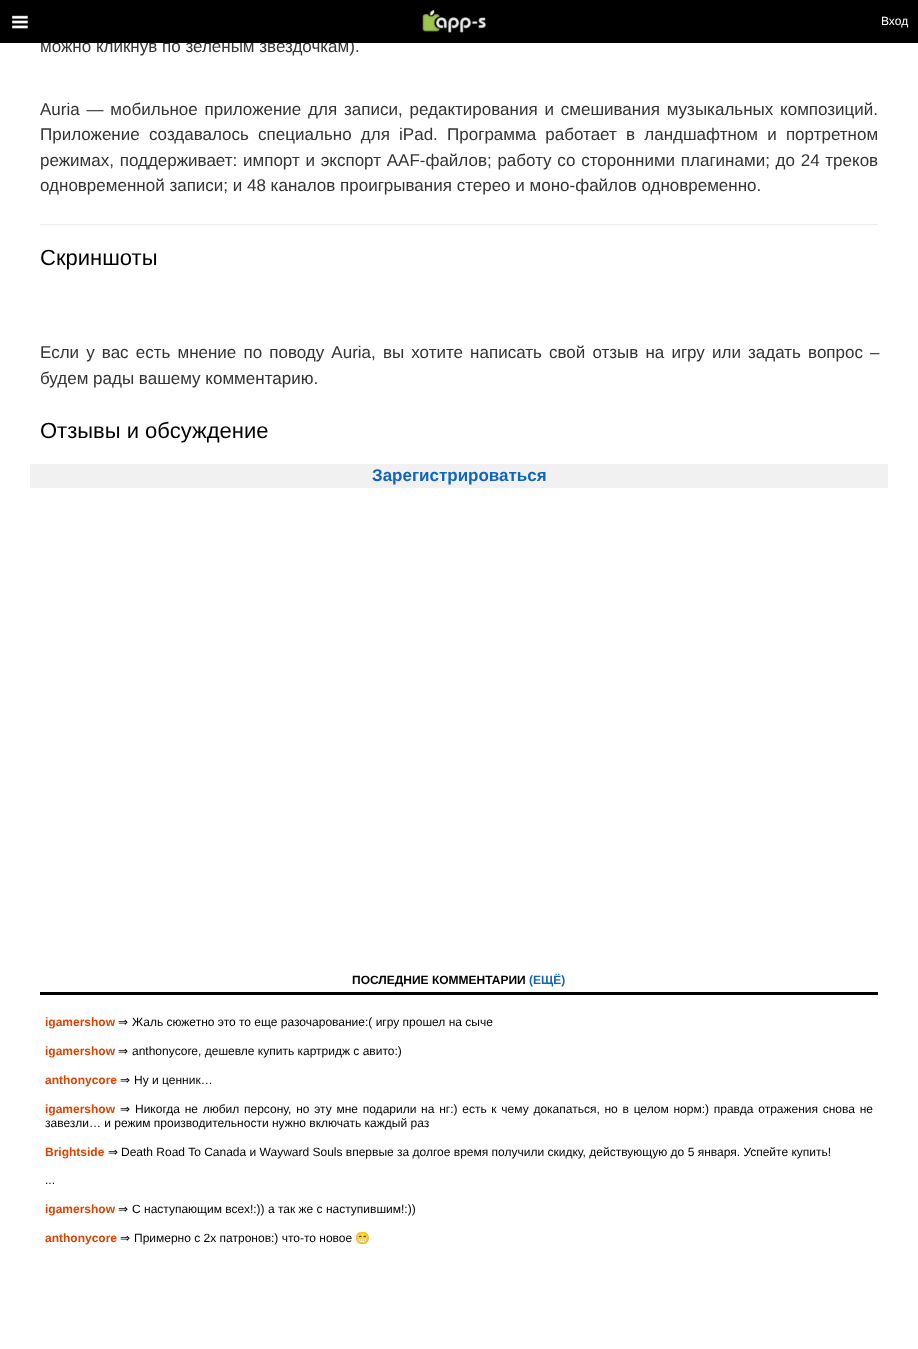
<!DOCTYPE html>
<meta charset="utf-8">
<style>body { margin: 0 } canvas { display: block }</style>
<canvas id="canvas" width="918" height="1349"></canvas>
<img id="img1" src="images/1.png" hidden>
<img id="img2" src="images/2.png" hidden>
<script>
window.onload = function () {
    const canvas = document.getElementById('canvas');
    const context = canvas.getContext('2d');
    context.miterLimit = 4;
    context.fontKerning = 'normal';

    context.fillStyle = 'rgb(255, 255, 255)';
    context.fillRect(0, 0, 918, 1349);
    context.fillStyle = 'rgb(238, 238, 238)';
    context.fillRect(40, 224, 838, 1);
    context.fillStyle = 'rgb(241, 241, 241)';
    context.fillRect(30, 464, 858, 24);
    context.fillStyle = 'rgb(0, 0, 0)';
    context.fillRect(40, 992, 838, 3);
    context.font = '17px Liberation Sans';
    context.fillStyle = 'rgb(51, 51, 51)';
    context.fillText('можно кликнув по зеленым звездочкам).', 40, 52);
    context.fillStyle = 'rgb(0, 0, 0)';
    context.fillRect(0, 0, 918, 43);
    context.font = '12px Liberation Sans';
    context.fillStyle = 'rgb(255, 255, 255)';
    context.fillText('Вход', 881, 25);
    context.drawImage(document.getElementById('img1'), 12, 15, 16, 14);
    context.drawImage(document.getElementById('img2'), 422, 10, 65, 23);
    context.wordSpacing = '2.1px';
    context.font = '17px Liberation Sans';
    context.fillStyle = 'rgb(51, 51, 51)';
    context.fillText('Auria — мобильное приложение для записи, редактирования и смешивания музыкальных композиций.', 40, 115);
    context.wordSpacing = '4.5px';
    context.fillText('Приложение создавалось специально для iPad. Программа работает в ландшафтном и портретном', 40, 140);
    context.wordSpacing = '1px';
    context.fillText('режимах, поддерживает: импорт и экспорт AAF-файлов; работу со сторонними плагинами; до 24 треков', 40, 166);
    context.wordSpacing = '0px';
    context.fillText('одновременной записи; и 48 каналов проигрывания стерео и моно-файлов одновременно.', 40, 191);
    context.font = '22px Liberation Sans';
    context.fillStyle = 'rgb(0, 0, 0)';
    context.fillText('Скриншоты', 40, 265);
    context.wordSpacing = '2.4px';
    context.font = '17px Liberation Sans';
    context.fillStyle = 'rgb(51, 51, 51)';
    context.fillText('Если у вас есть мнение по поводу Auria, вы хотите написать свой отзыв на игру или задать вопрос –', 40, 358);
    context.wordSpacing = '0px';
    context.fillText('будем рады вашему комментарию.', 40, 384);
    context.font = '22px Liberation Sans';
    context.fillStyle = 'rgb(0, 0, 0)';
    context.fillText('Отзывы и обсуждение', 40, 438);
    context.font = 'bold 17px Liberation Sans';
    context.fillStyle = 'rgb(18, 101, 186)';
    context.fillText('Зарегистрироваться', 372, 481);
    context.font = 'bold 12px Liberation Sans';
    context.fillStyle = 'rgb(0, 0, 0)';
    context.fillText('ПОСЛЕДНИЕ КОММЕНТАРИИ', 352, 984);
    context.fillStyle = 'rgb(18, 101, 186)';
    context.fillText('(ЕЩЁ)', 529, 984);
    context.fillStyle = 'rgb(220, 67, 0)';
    context.fillText('igamershow', 45, 1026);
    context.font = '12px DejaVu Sans';
    context.fillStyle = 'rgb(0, 0, 0)';
    context.fillText('⇒', 118, 1026);
    context.font = '12px Liberation Sans';
    context.fillText('Жаль сюжетно это то еще разочарование:( игру прошел на сыче', 132, 1026);
    context.font = 'bold 12px Liberation Sans';
    context.fillStyle = 'rgb(220, 67, 0)';
    context.fillText('igamershow', 45, 1055);
    context.font = '12px DejaVu Sans';
    context.fillStyle = 'rgb(0, 0, 0)';
    context.fillText('⇒', 118, 1055);
    context.font = '12px Liberation Sans';
    context.fillText('anthonycore, дешевле купить картридж с авито:)', 132, 1055);
    context.font = 'bold 12px Liberation Sans';
    context.fillStyle = 'rgb(220, 67, 0)';
    context.fillText('anthonycore', 45, 1084);
    context.font = '12px DejaVu Sans';
    context.fillStyle = 'rgb(0, 0, 0)';
    context.fillText('⇒', 120, 1084);
    context.font = '12px Liberation Sans';
    context.fillText('Ну и ценник…', 134, 1084);
    context.font = 'bold 12px Liberation Sans';
    context.fillStyle = 'rgb(220, 67, 0)';
    context.fillText('igamershow', 45, 1113);
    context.font = '12px DejaVu Sans';
    context.fillStyle = 'rgb(0, 0, 0)';
    context.fillText('⇒', 120, 1113);
    context.wordSpacing = '1.4px';
    context.font = '12px Liberation Sans';
    context.fillText('Никогда не любил персону, но эту мне подарили на нг:) есть к чему докапаться, но в целом норм:) правда отражения снова не', 135, 1113);
    context.wordSpacing = '0px';
    context.fillText('завезли… и режим производительности нужно включать каждый раз', 45, 1127);
    context.font = 'bold 12px Liberation Sans';
    context.fillStyle = 'rgb(220, 67, 0)';
    context.fillText('Brightside', 45, 1156);
    context.font = '12px DejaVu Sans';
    context.fillStyle = 'rgb(0, 0, 0)';
    context.fillText('⇒', 108, 1156);
    context.font = '12px Liberation Sans';
    context.fillText('Death Road To Canada и Wayward Souls впервые за долгое время получили скидку, действующую до 5 января. Успейте купить!', 121, 1156);
    context.fillText('...', 45, 1184);
    context.font = 'bold 12px Liberation Sans';
    context.fillStyle = 'rgb(220, 67, 0)';
    context.fillText('igamershow', 45, 1213);
    context.font = '12px DejaVu Sans';
    context.fillStyle = 'rgb(0, 0, 0)';
    context.fillText('⇒', 118, 1213);
    context.font = '12px Liberation Sans';
    context.fillText('С наступающим всех!:)) а так же с наступившим!:))', 132, 1213);
    context.font = 'bold 12px Liberation Sans';
    context.fillStyle = 'rgb(220, 67, 0)';
    context.fillText('anthonycore', 45, 1242);
    context.font = '12px DejaVu Sans';
    context.fillStyle = 'rgb(0, 0, 0)';
    context.fillText('⇒', 120, 1242);
    context.font = '12px Liberation Sans';
    context.fillText('Примерно с 2х патронов:) что-то новое', 134, 1242);
    context.font = '12px Noto Color Emoji';
    context.fillText('😁', 355, 1242);
};
</script>
